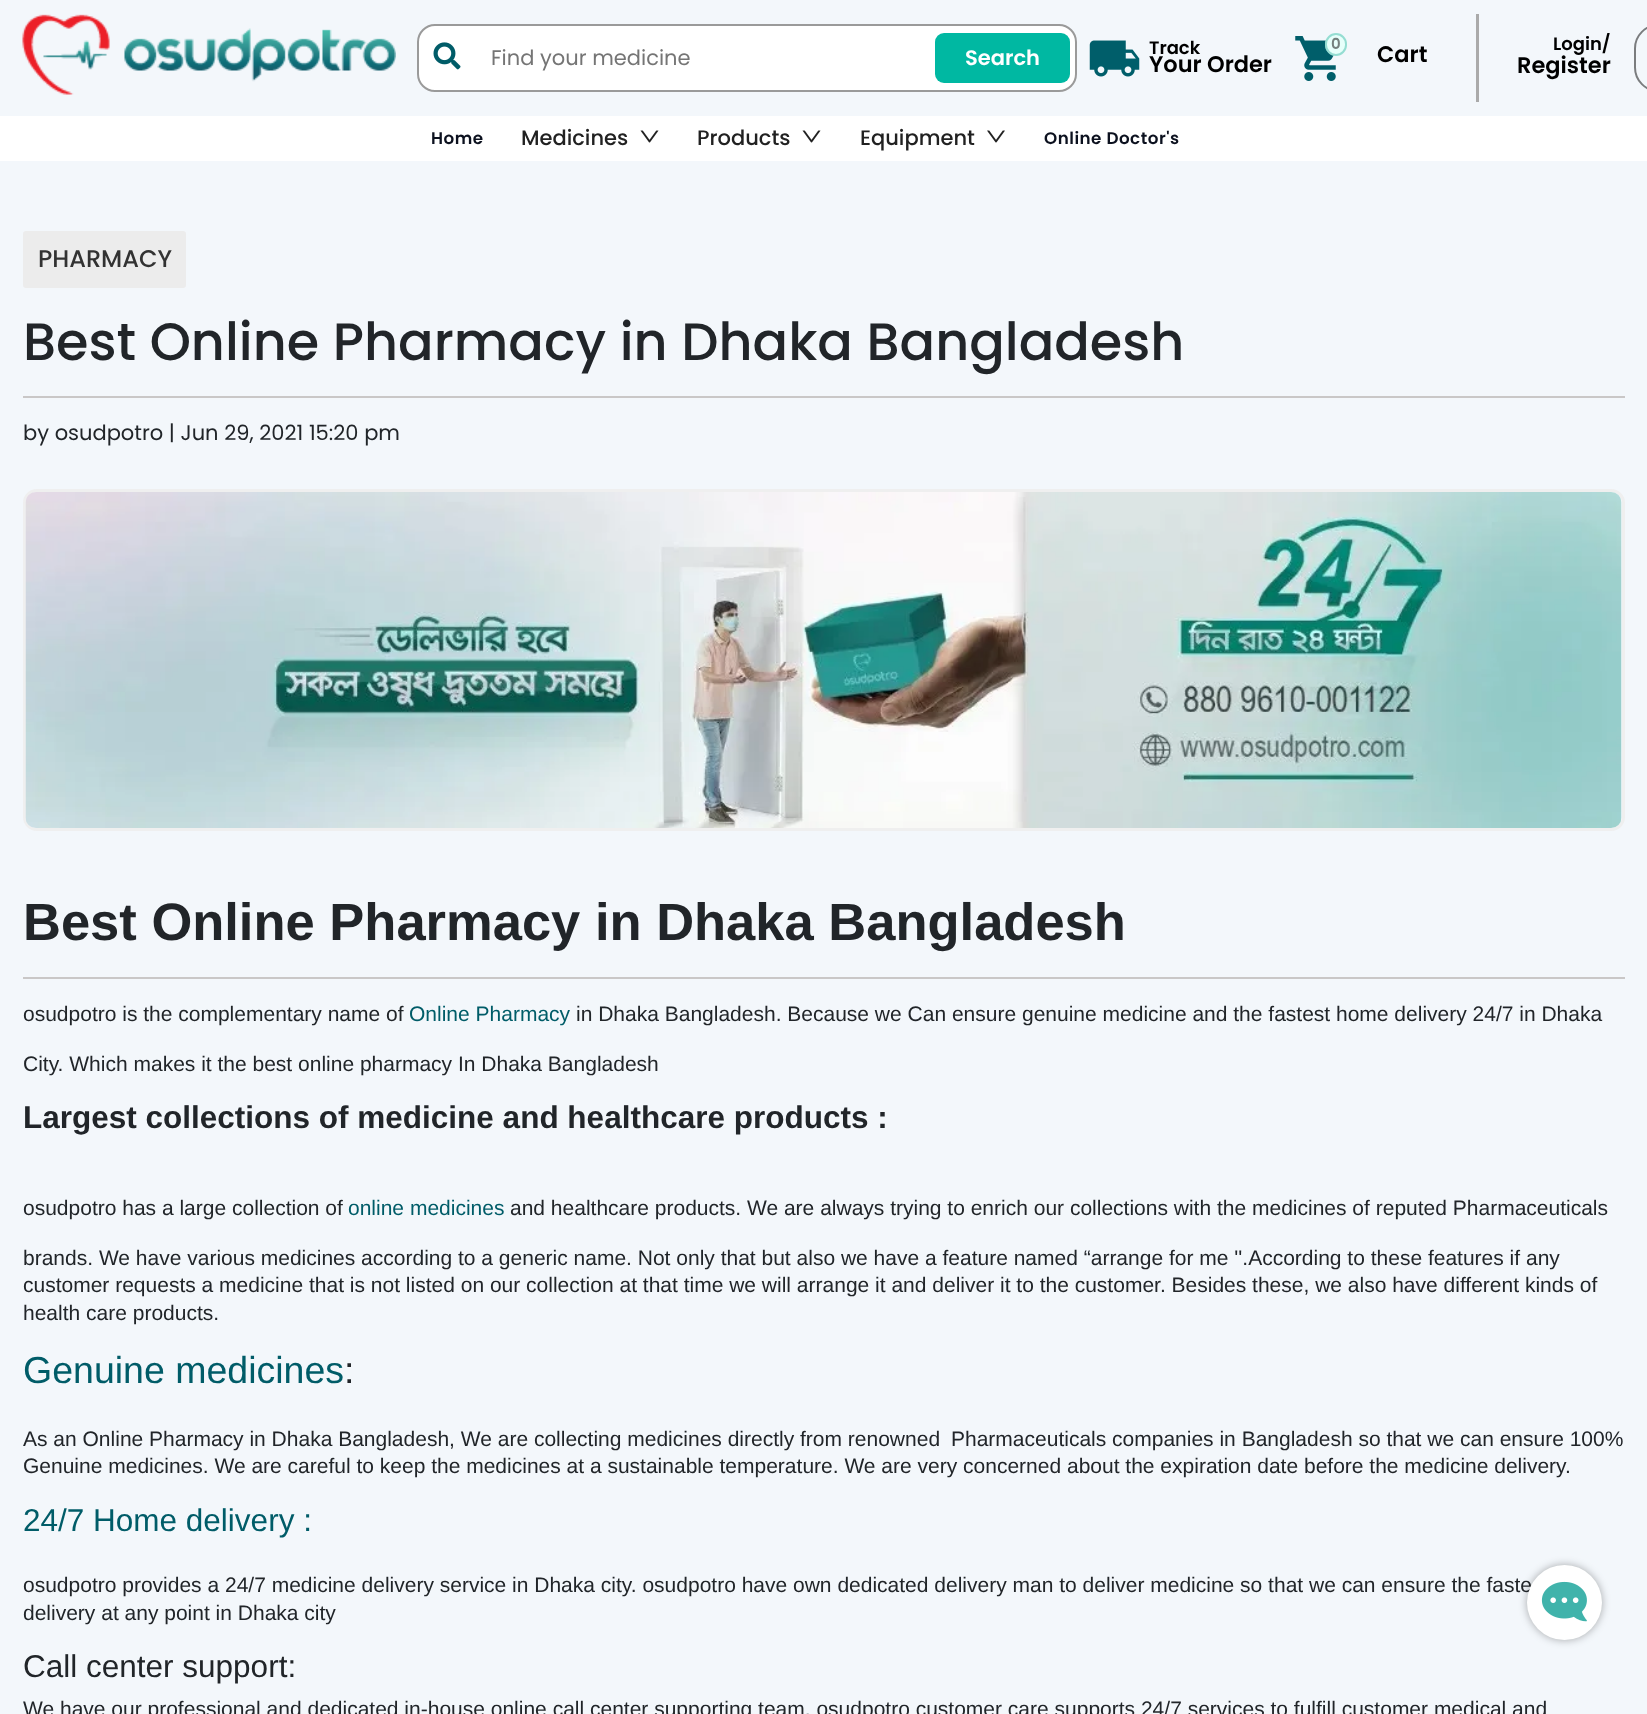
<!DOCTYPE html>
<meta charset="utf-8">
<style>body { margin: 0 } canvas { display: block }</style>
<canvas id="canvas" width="1647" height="1714"></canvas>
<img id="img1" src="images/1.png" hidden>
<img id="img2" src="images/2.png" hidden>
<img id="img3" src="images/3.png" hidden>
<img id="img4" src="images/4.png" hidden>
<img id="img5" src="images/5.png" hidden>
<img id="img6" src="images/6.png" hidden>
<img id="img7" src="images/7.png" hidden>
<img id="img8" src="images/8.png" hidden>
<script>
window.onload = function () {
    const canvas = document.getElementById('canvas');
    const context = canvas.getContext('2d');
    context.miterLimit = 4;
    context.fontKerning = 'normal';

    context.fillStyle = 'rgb(243, 247, 251)';
    context.fillRect(0, 0, 1647, 1714);
    context.drawImage(document.getElementById('img1'), 22, 14, 374, 81);
    context.fillStyle = 'rgb(255, 255, 255)';
    context.beginPath();
    context.roundRect(418, 25, 658, 66, 17);
    context.fill();
    context.strokeStyle = 'rgb(154, 154, 154)';
    context.lineWidth = 2;
    context.stroke();
    context.drawImage(document.getElementById('img2'), 433, 42, 28, 28);
    context.fillStyle = 'rgb(0, 184, 162)';
    context.beginPath();
    context.roundRect(935, 33, 135, 50, 9);
    context.fill();
    context.drawImage(document.getElementById('img3'), 1089, 40, 51, 37);
    context.drawImage(document.getElementById('img4'), 1295, 36, 41, 45);
    context.fillStyle = 'rgb(231, 255, 251)';
    context.beginPath();
    context.roundRect(1325, 33, 22, 23, 11);
    context.fill();
    context.beginPath();
    context.roundRect(1326, 34, 20, 21, 10);
    context.strokeStyle = 'rgba(68, 187, 169, 0.5)';
    context.stroke();
    context.fillStyle = 'rgb(170, 170, 170)';
    context.fillRect(1476, 14, 3, 88);
    context.beginPath();
    context.roundRect(1635, 25, 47, 66, 32.5);
    context.strokeStyle = 'rgb(122, 124, 126)';
    context.stroke();
    context.fillStyle = 'rgb(255, 255, 255)';
    context.fillRect(0, 116, 1647, 45);
    context.drawImage(document.getElementById('img5'), 640, 130, 19, 13);
    context.drawImage(document.getElementById('img5'), 802, 130, 19, 13);
    context.drawImage(document.getElementById('img6'), 987, 130, 18, 13);
    context.fillStyle = 'rgb(236, 236, 236)';
    context.beginPath();
    context.roundRect(23, 231, 163, 57, 3);
    context.fill();
    context.fillStyle = 'rgb(201, 199, 199)';
    context.fillRect(23, 396, 1602, 2);
    context.beginPath();
    context.roundRect(24.5, 490.5, 1599, 339, 12.5);
    context.strokeStyle = 'rgb(239, 239, 239)';
    context.lineWidth = 3;
    context.stroke();
    context.drawImage(document.getElementById('img7'), 25, 492, 1597, 336);
    context.fillRect(23, 977, 1602, 2);
    context.fillStyle = 'rgba(0, 0, 0, 0.32)';
    context.filter = 'blur(4px)';
    context.beginPath();
    context.roundRect(1527, 1565, 75, 75, 37.5);
    context.fill();
    context.filter = 'none';
    context.font = '21px Poppins';
    context.fillStyle = 'rgb(117, 117, 117)';
    context.fillText('Find your medicine', 491, 65);
    context.font = '600 21px Poppins';
    context.fillStyle = 'rgb(255, 255, 255)';
    context.fillText('Search', 965, 65);
    context.font = '600 18px Poppins';
    context.fillStyle = 'rgb(0, 0, 0)';
    context.fillText('Track', 1149, 54);
    context.font = '600 22.5px Poppins';
    context.fillText('Your Order', 1149, 72);
    context.font = '600 15px Poppins';
    context.fillStyle = 'rgb(116, 128, 126)';
    context.fillText('0', 1331, 49);
    context.font = '600 22.5px Poppins';
    context.fillStyle = 'rgb(0, 0, 0)';
    context.fillText('Cart', 1377, 62);
    context.font = '600 18px Poppins';
    context.fillText('Login/', 1553, 50);
    context.font = '600 22.5px Poppins';
    context.fillText('Register', 1517, 73);
    context.letterSpacing = '0.5px';
    context.font = '600 16.75px Poppins';
    context.fillStyle = 'rgb(12, 17, 31)';
    context.fillText('Home', 431, 144);
    context.letterSpacing = '0px';
    context.font = '500 21px Poppins';
    context.fillStyle = 'rgb(33, 33, 33)';
    context.fillText('Medicines', 521, 145);
    context.fillText('Products', 697, 145);
    context.fillText('Equipment', 860, 145);
    context.letterSpacing = '0.5px';
    context.font = '600 16.75px Poppins';
    context.fillStyle = 'rgb(12, 17, 31)';
    context.fillText('Online Doctor\'s', 1044, 144);
    context.letterSpacing = '0px';
    context.font = '500 24px Poppins';
    context.fillStyle = 'rgb(50, 50, 50)';
    context.fillText('PHARMACY', 38, 267);
    context.font = '500 52.5px Poppins';
    context.fillStyle = 'rgb(33, 37, 41)';
    context.fillText('Best Online Pharmacy in Dhaka Bangladesh', 23, 360);
    context.font = '21px Poppins';
    context.fillText('by osudpotro | Jun 29, 2021 15:20 pm', 23, 440);
    context.font = 'bold 52.5px Liberation Sans';
    context.fillText('Best Online Pharmacy in Dhaka Bangladesh', 23, 940);
    context.font = '21px Liberation Sans';
    context.fillText('osudpotro is the complementary name of', 23, 1021);
    context.fillStyle = 'rgb(0, 92, 104)';
    context.fillText('Online Pharmacy', 409, 1021);
    context.fillStyle = 'rgb(33, 37, 41)';
    context.fillText('in Dhaka Bangladesh. Because we Can ensure genuine medicine and the fastest home delivery 24/7 in Dhaka', 576, 1021);
    context.fillText('City. Which makes it the best online pharmacy In Dhaka Bangladesh', 23, 1071);
    context.font = 'bold 31.5px Liberation Sans';
    context.fillText('Largest collections of medicine and healthcare products :', 23, 1128);
    context.font = '21px Liberation Sans';
    context.fillText('osudpotro has a large collection of', 23, 1215);
    context.fillStyle = 'rgb(0, 92, 104)';
    context.fillText('online medicines', 348, 1215);
    context.fillStyle = 'rgb(33, 37, 41)';
    context.fillText('and healthcare products. We are always trying to enrich our collections with the medicines of reputed Pharmaceuticals', 510, 1215);
    context.fillText('brands. We have various medicines according to a generic name. Not only that but also we have a feature named “arrange for me \'\'.According to these features if any', 23, 1265);
    context.fillText('customer requests a medicine that is not listed on our collection at that time we will arrange it and deliver it to the customer. Besides these, we also have different kinds of', 23, 1292);
    context.fillText('health care products.', 23, 1320);
    context.font = '37.5px Liberation Sans';
    context.fillStyle = 'rgb(0, 92, 104)';
    context.fillText('Genuine medicines', 23, 1383);
    context.fillStyle = 'rgb(33, 37, 41)';
    context.fillText(':', 344, 1383);
    context.font = '21px Liberation Sans';
    context.fillText('As an Online Pharmacy in Dhaka Bangladesh, We are collecting medicines directly from renowned', 23, 1446);
    context.fillText('Pharmaceuticals companies in Bangladesh so that we can ensure 100%', 951, 1446);
    context.fillText('Genuine medicines. We are careful to keep the medicines at a sustainable temperature. We are very concerned about the expiration date before the medicine delivery.', 23, 1473);
    context.font = '31.5px Liberation Sans';
    context.fillStyle = 'rgb(0, 92, 104)';
    context.fillText('24/7 Home delivery :', 23, 1531);
    context.font = '21px Liberation Sans';
    context.fillStyle = 'rgb(33, 37, 41)';
    context.fillText('osudpotro provides a 24/7 medicine delivery service in Dhaka city. osudpotro have own dedicated delivery man to deliver medicine so that we can ensure the faste', 23, 1592);
    context.fillText('delivery at any point in Dhaka city', 23, 1620);
    context.font = '31.5px Liberation Sans';
    context.fillText('Call center support:', 23, 1677);
    context.font = '21px Liberation Sans';
    context.fillText('We have our professional and dedicated in-house online call center supporting team. osudpotro customer care supports 24/7 services to fulfill customer medical and', 23, 1716);
    context.fillStyle = 'rgb(255, 255, 255)';
    context.beginPath();
    context.arc(1564.5, 1602.5, 37.5, 0, 2 * Math.PI);
    context.fill();
    context.drawImage(document.getElementById('img8'), 1541, 1581, 46, 41);
};
</script>
